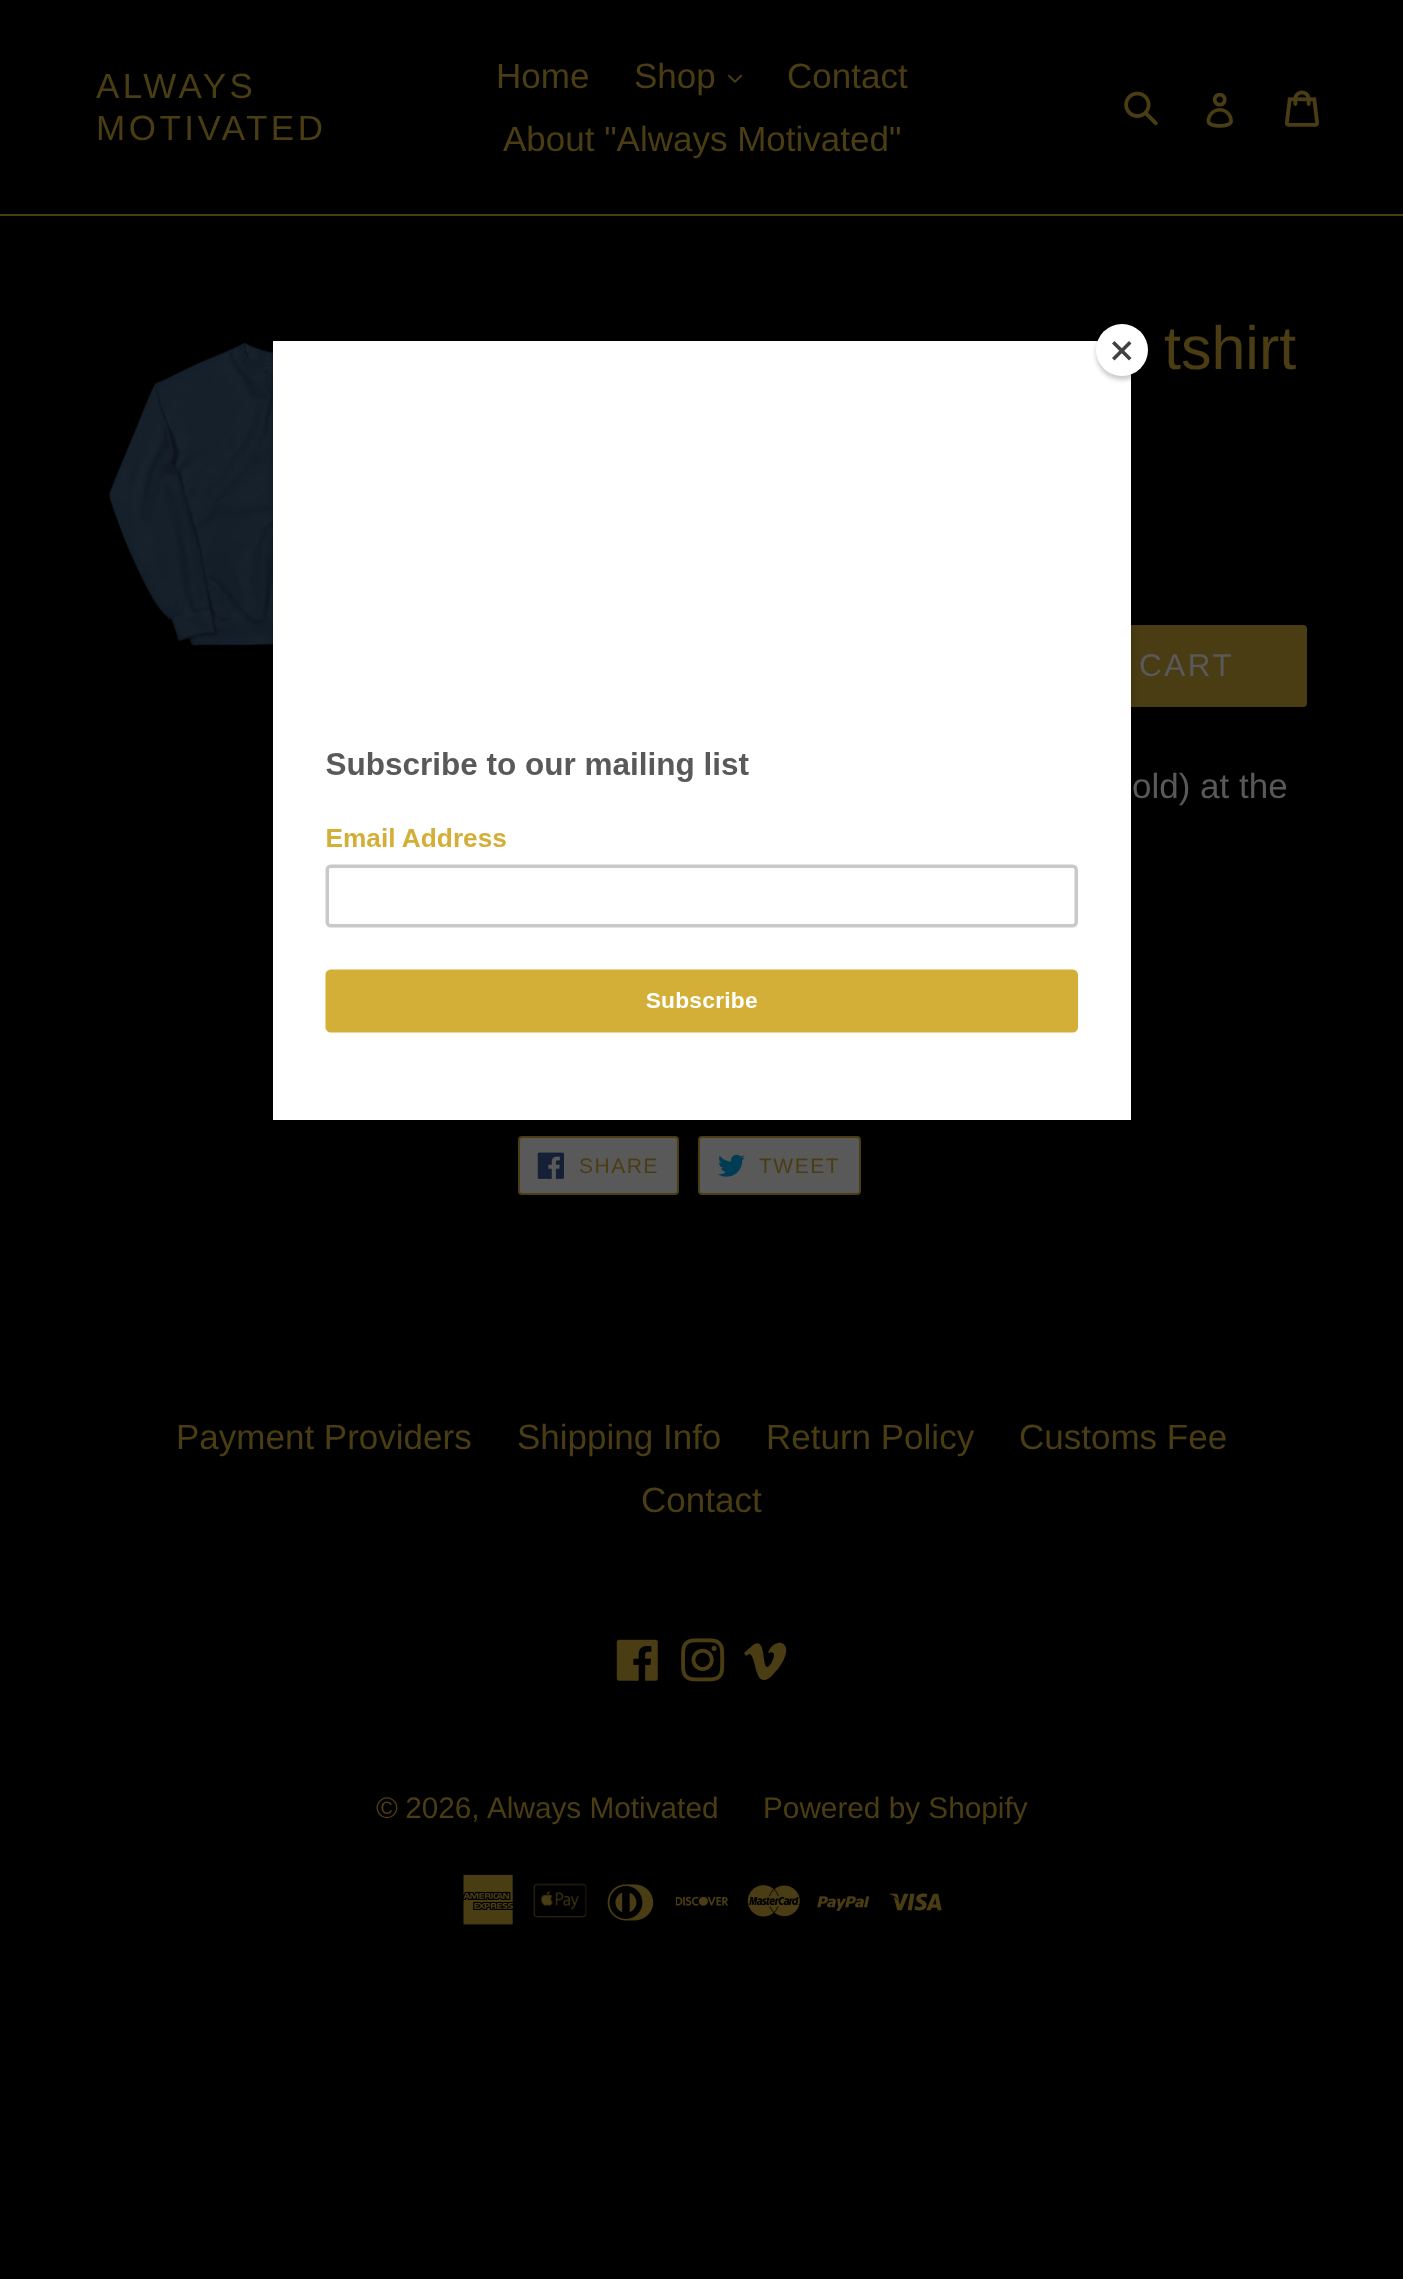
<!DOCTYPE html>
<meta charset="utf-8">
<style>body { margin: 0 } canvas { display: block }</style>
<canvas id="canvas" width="1403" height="2279"></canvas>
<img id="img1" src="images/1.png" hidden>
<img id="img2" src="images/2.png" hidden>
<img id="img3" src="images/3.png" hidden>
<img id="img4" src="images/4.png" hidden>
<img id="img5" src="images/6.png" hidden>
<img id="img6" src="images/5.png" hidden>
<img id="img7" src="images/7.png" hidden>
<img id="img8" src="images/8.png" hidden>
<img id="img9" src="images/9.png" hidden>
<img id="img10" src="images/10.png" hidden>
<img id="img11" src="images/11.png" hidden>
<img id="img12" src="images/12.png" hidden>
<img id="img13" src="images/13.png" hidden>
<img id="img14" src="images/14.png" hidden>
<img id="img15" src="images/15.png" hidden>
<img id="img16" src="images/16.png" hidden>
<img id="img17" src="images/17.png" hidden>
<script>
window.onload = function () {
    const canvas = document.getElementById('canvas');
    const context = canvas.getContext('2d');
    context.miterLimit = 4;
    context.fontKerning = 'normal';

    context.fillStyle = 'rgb(0, 0, 0)';
    context.fillRect(0, 0, 1403, 2279);
    context.fillStyle = 'rgb(74, 61, 19)';
    context.fillRect(0, 214, 1403, 2);
    context.drawImage(document.getElementById('img1'), 728, 74, 14, 9);
    context.drawImage(document.getElementById('img2'), 1124, 91, 34, 35);
    context.drawImage(document.getElementById('img3'), 1206, 93, 27, 35);
    context.drawImage(document.getElementById('img4'), 1285, 90, 34, 37);
    context.drawImage(document.getElementById('img5'), 108, 342, 165, 304);
    context.beginPath();
    context.roundRect(921, 625, 386, 82, 4);
    context.fill();
    context.fillStyle = 'rgba(0, 0, 0, 0.2)';
    context.filter = 'blur(3.5px)';
    context.beginPath();
    context.rect(273, 345, 858, 779);
    context.fill();
    context.filter = 'none';
    context.drawImage(document.getElementById('img6'), 273, 341, 858, 779);
    context.filter = 'blur(2px)';
    context.beginPath();
    context.roundRect(1096, 327, 52, 53, 26);
    context.fill();
    context.filter = 'none';
    context.fillStyle = 'rgb(255, 255, 255)';
    context.beginPath();
    context.arc(1122, 350, 26, 0, 2 * Math.PI);
    context.fill();
    context.fillStyle = 'rgb(65, 65, 65)';
    context.beginPath();
    context.moveTo(1129, 341);
    context.lineTo(1131.5, 343.5);
    context.lineTo(1114.5, 360.5);
    context.lineTo(1112, 358);
    context.closePath();
    context.fill();
    context.beginPath();
    context.moveTo(1112, 343.5);
    context.lineTo(1114.5, 341);
    context.lineTo(1131.5, 358);
    context.lineTo(1129, 360.5);
    context.closePath();
    context.fill();
    context.fillStyle = 'rgb(89, 89, 89)';
    context.beginPath();
    context.roundRect(519, 1137, 159, 57, 3);
    context.fill();
    context.strokeStyle = 'rgb(74, 61, 19)';
    context.lineWidth = 2;
    context.stroke();
    context.drawImage(document.getElementById('img7'), 537, 1152, 27, 27);
    context.beginPath();
    context.roundRect(699, 1137, 161, 57, 3);
    context.fill();
    context.stroke();
    context.drawImage(document.getElementById('img8'), 718, 1154, 27, 23);
    context.drawImage(document.getElementById('img9'), 616, 1639, 42, 42);
    context.drawImage(document.getElementById('img10'), 681, 1638, 44, 44);
    context.fillStyle = 'rgb(74, 61, 19)';
    context.beginPath();
    context.moveTo(744, 1653);
    context.lineTo(746, 1656);
    context.lineTo(749, 1654);
    context.bezierCurveTo(756, 1654, 754, 1682, 765, 1680);
    context.bezierCurveTo(770, 1679, 774, 1673, 778, 1669);
    context.bezierCurveTo(799, 1641, 774, 1635, 768, 1653);
    context.bezierCurveTo(780, 1648, 771, 1667, 767, 1667);
    context.bezierCurveTo(762, 1666, 766, 1636, 753, 1645);
    context.closePath();
    context.fill();
    context.drawImage(document.getElementById('img11'), 463, 1874, 50, 51);
    context.drawImage(document.getElementById('img12'), 533, 1883, 54, 35);
    context.drawImage(document.getElementById('img13'), 607, 1884, 47, 37);
    context.drawImage(document.getElementById('img14'), 676, 1896, 52, 10);
    context.drawImage(document.getElementById('img15'), 747, 1885, 53, 32);
    context.drawImage(document.getElementById('img16'), 817, 1896, 53, 15);
    context.drawImage(document.getElementById('img17'), 889, 1893, 53, 18);
    context.letterSpacing = '3.5px';
    context.font = '35px Liberation Sans';
    context.fillText('ALWAYS', 96, 98);
    context.fillText('MOTIVATED', 96, 140);
    context.letterSpacing = '0px';
    context.fillText('Home', 496, 88);
    context.fillText('Shop', 634, 88);
    context.fillText('Contact', 787, 88);
    context.fillText('About "Always Motivated"', 503, 151);
    context.font = '61px Liberation Sans';
    context.fillText('tshirt', 1164, 369);
    context.letterSpacing = '2.5px';
    context.font = '31.5px Liberation Sans';
    context.fillStyle = 'rgb(89, 89, 89)';
    context.fillText('CART', 1139, 676);
    context.letterSpacing = '0px';
    context.font = '35px Liberation Sans';
    context.fillText('old) at the', 1132, 798);
    context.letterSpacing = '1.5px';
    context.font = '21px Liberation Sans';
    context.fillStyle = 'rgb(74, 61, 19)';
    context.fillText('SHARE', 579, 1173);
    context.fillText('TWEET', 759, 1173);
    context.letterSpacing = '0px';
    context.font = '35px Liberation Sans';
    context.fillText('Payment Providers', 176, 1449);
    context.fillText('Shipping Info', 517, 1449);
    context.fillText('Return Policy', 766, 1449);
    context.fillText('Customs Fee', 1019, 1449);
    context.fillText('Contact', 641, 1512);
    context.wordSpacing = '-1px';
    context.font = '29.75px Liberation Sans';
    context.fillText('© 2026,', 376, 1818);
    context.wordSpacing = '0px';
    context.fillText('Always Motivated', 487, 1818);
    context.fillText('Powered by Shopify', 763, 1818);
};
</script>
